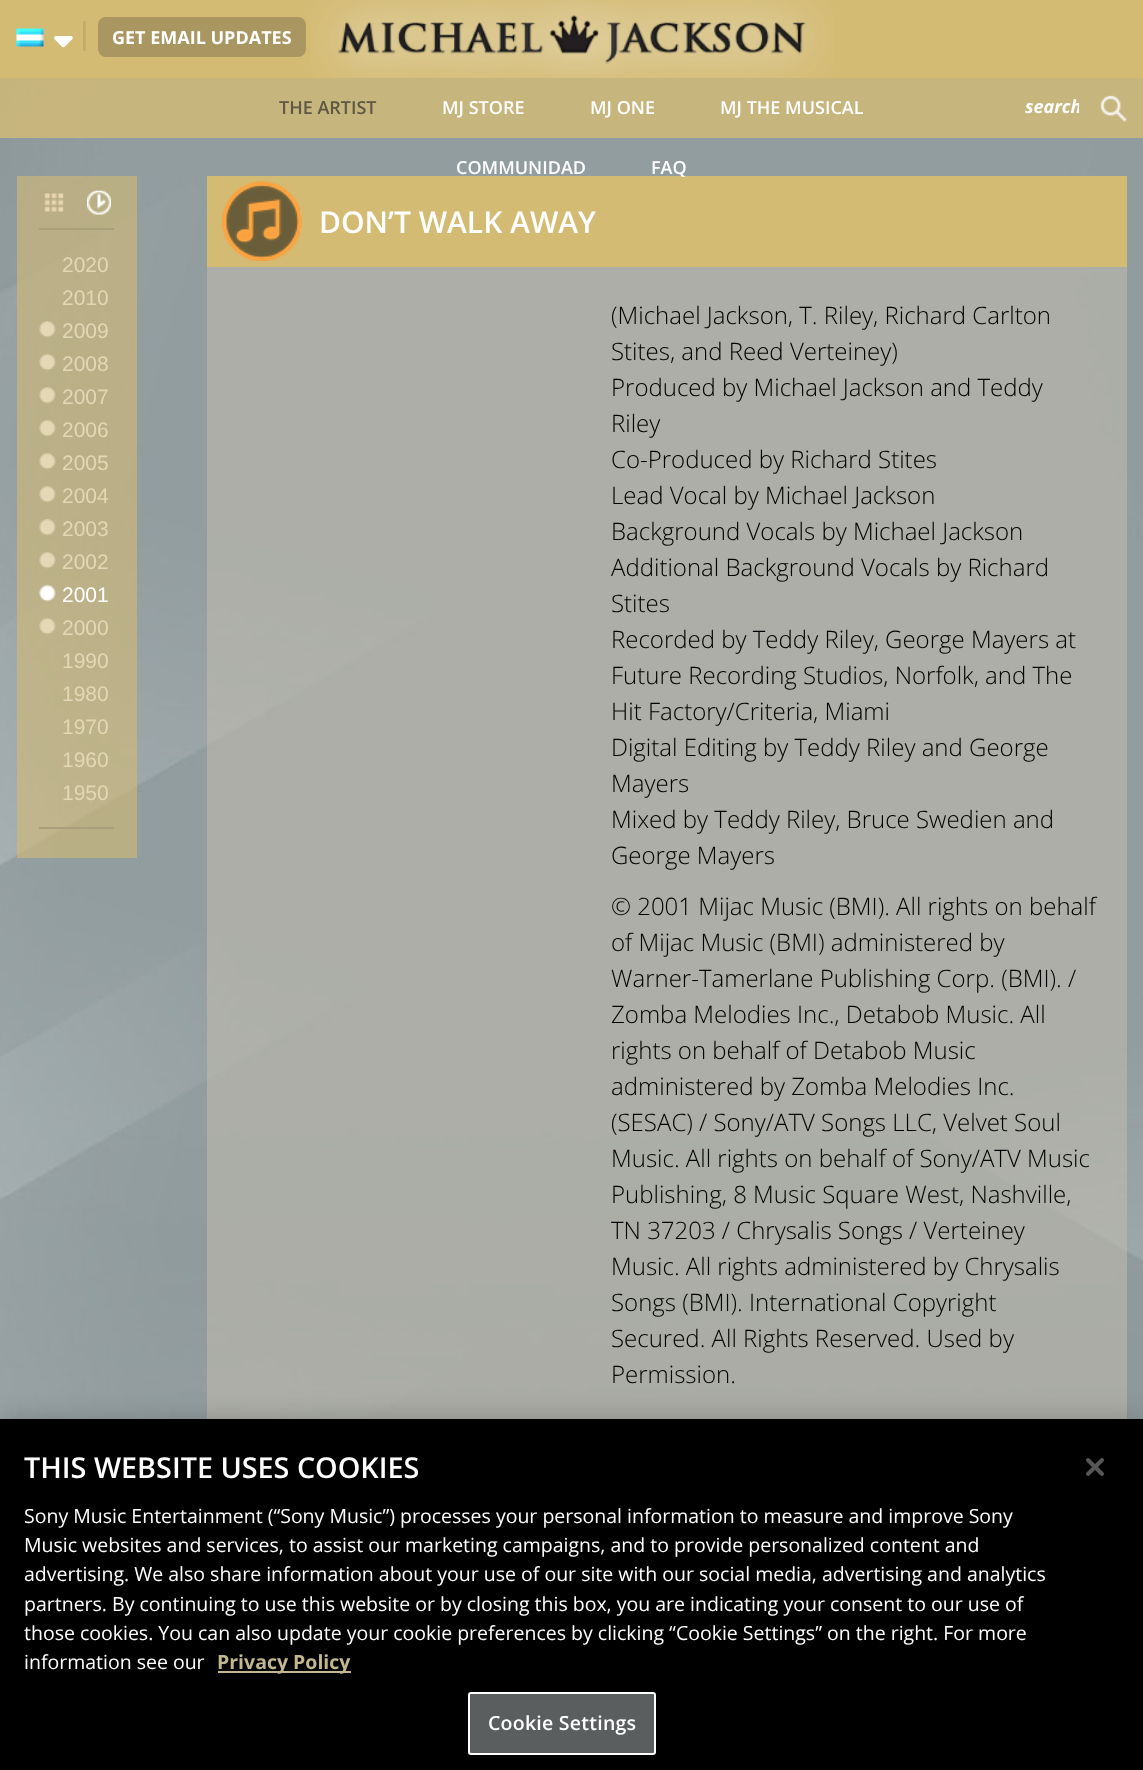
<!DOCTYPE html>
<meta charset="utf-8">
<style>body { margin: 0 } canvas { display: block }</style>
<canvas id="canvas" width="1143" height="1770"></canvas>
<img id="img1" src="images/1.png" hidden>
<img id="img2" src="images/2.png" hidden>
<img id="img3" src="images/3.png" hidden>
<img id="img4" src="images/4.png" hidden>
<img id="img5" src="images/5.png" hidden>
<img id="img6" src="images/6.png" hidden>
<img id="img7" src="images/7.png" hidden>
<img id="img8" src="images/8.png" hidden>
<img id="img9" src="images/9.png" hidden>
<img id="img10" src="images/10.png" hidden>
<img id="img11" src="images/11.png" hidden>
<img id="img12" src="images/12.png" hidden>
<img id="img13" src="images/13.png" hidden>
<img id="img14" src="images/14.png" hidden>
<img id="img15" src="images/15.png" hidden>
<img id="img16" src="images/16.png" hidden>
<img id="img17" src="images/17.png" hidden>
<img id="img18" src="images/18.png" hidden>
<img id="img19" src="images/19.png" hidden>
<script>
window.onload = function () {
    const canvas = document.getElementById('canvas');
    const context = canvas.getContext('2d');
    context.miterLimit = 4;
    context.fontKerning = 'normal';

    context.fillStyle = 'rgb(255, 255, 255)';
    context.fillRect(0, 0, 1143, 1770);
    context.drawImage(document.getElementById('img1'), 0, 78, 1143, 1341);
    context.fillStyle = 'rgb(212, 187, 116)';
    context.fillRect(0, 0, 1143, 78);
    context.drawImage(document.getElementById('img2'), 311, 0, 522, 78);
    context.drawImage(document.getElementById('img3'), 16, 28, 28, 19);
    context.drawImage(document.getElementById('img4'), 54, 36, 19, 12);
    context.fillStyle = 'rgb(194, 172, 108)';
    context.fillRect(83, 21, 3, 30);
    context.fillStyle = 'rgb(169, 150, 97)';
    context.beginPath();
    context.roundRect(98, 17, 208, 40, 8);
    context.fill();
    context.fillStyle = 'rgba(212, 188, 117, 0.8)';
    context.fillRect(0, 78, 1143, 60);
    context.drawImage(document.getElementById('img5'), 1100, 95, 27, 27);
    context.fillStyle = 'rgba(212, 187, 116, 0.6)';
    context.fillRect(17, 176, 120, 682);
    context.fillStyle = 'rgb(170, 159, 123)';
    context.fillRect(39, 228, 75, 2);
    context.drawImage(document.getElementById('img6'), 44, 193, 20, 19);
    context.drawImage(document.getElementById('img7'), 87, 190, 24, 25);
    context.fillRect(39, 827, 75, 2);
    context.drawImage(document.getElementById('img8'), 39, 321, 17, 17);
    context.drawImage(document.getElementById('img9'), 39, 354, 17, 17);
    context.drawImage(document.getElementById('img10'), 39, 387, 17, 17);
    context.drawImage(document.getElementById('img11'), 39, 420, 17, 17);
    context.drawImage(document.getElementById('img12'), 39, 453, 17, 17);
    context.drawImage(document.getElementById('img13'), 39, 486, 17, 17);
    context.drawImage(document.getElementById('img14'), 39, 519, 17, 17);
    context.drawImage(document.getElementById('img15'), 39, 552, 17, 17);
    context.drawImage(document.getElementById('img16'), 39, 584, 17, 18);
    context.drawImage(document.getElementById('img17'), 39, 618, 17, 17);
    context.fillStyle = 'rgba(197, 191, 175, 0.5)';
    context.fillRect(207, 267, 920, 1152);
    context.fillStyle = 'rgb(212, 187, 116)';
    context.fillRect(207, 176, 920, 91);
    context.drawImage(document.getElementById('img18'), 222, 181, 80, 80);
    context.fillStyle = 'rgba(0, 0, 0, 0.2)';
    context.filter = 'blur(13.5px)';
    context.beginPath();
    context.rect(0, 1419, 1143, 351);
    context.fill();
    context.filter = 'none';
    context.fillStyle = 'rgb(0, 0, 0)';
    context.fillRect(0, 1419, 1143, 351);
    context.fillStyle = 'rgb(194, 183, 142)';
    context.fillRect(218, 1671, 133, 2);
    context.fillStyle = 'rgb(91, 94, 95)';
    context.beginPath();
    context.roundRect(469, 1693, 186, 61, 2);
    context.fill();
    context.strokeStyle = 'rgb(255, 255, 255)';
    context.lineWidth = 2;
    context.stroke();
    context.drawImage(document.getElementById('img19'), 1086, 1458, 18, 18);
    context.font = 'bold 18px Open Sans';
    context.fillStyle = 'rgb(255, 255, 255)';
    context.fillText('GET EMAIL UPDATES', 112, 44);
    context.font = '600 18px Open Sans';
    context.fillStyle = 'rgb(94, 88, 68)';
    context.fillText('THE ARTIST', 279, 114);
    context.fillStyle = 'rgb(255, 255, 255)';
    context.fillText('MJ STORE', 442, 114);
    context.fillText('MJ ONE', 590, 114);
    context.fillText('MJ THE MUSICAL', 720, 114);
    context.fillText('COMMUNIDAD', 456, 174);
    context.fillText('FAQ', 651, 174);
    context.save();
    context.beginPath();
    context.rect(1025, 93, 54, 26);
    context.clip();
    context.font = 'italic bold 18px Open Sans';
    context.fillText('search', 1025, 113);
    context.restore();
    context.font = '21px Liberation Sans';
    context.fillStyle = 'rgb(227, 215, 181)';
    context.fillText('2020', 62, 272);
    context.fillText('2010', 62, 305);
    context.fillText('2009', 62, 338);
    context.fillText('2008', 62, 371);
    context.fillText('2007', 62, 404);
    context.fillText('2006', 62, 437);
    context.fillText('2005', 62, 470);
    context.fillText('2004', 62, 503);
    context.fillText('2003', 62, 536);
    context.fillText('2002', 62, 569);
    context.fillStyle = 'rgb(255, 255, 255)';
    context.fillText('2001', 62, 602);
    context.fillStyle = 'rgb(227, 215, 181)';
    context.fillText('2000', 62, 635);
    context.fillText('1990', 62, 668);
    context.fillText('1980', 62, 701);
    context.fillText('1970', 62, 734);
    context.fillText('1960', 62, 767);
    context.fillText('1950', 62, 800);
    context.font = '600 30px Open Sans';
    context.fillStyle = 'rgb(255, 255, 255)';
    context.fillText('DON’T WALK AWAY', 319, 233);
    context.font = '300 24px Open Sans';
    context.fillStyle = 'rgb(0, 0, 0)';
    context.fillText('(Michael Jackson, T. Riley, Richard Carlton', 611, 324);
    context.fillText('Stites, and Reed Verteiney)', 611, 360);
    context.fillText('Produced by Michael Jackson and Teddy', 611, 396);
    context.fillText('Riley', 611, 432);
    context.fillText('Co-Produced by Richard Stites', 611, 468);
    context.fillText('Lead Vocal by Michael Jackson', 611, 504);
    context.fillText('Background Vocals by Michael Jackson', 611, 540);
    context.fillText('Additional Background Vocals by Richard', 611, 576);
    context.fillText('Stites', 611, 612);
    context.fillText('Recorded by Teddy Riley, George Mayers at', 611, 648);
    context.fillText('Future Recording Studios, Norfolk, and The', 611, 684);
    context.fillText('Hit Factory/Criteria, Miami', 611, 720);
    context.fillText('Digital Editing by Teddy Riley and George', 611, 756);
    context.fillText('Mayers', 611, 792);
    context.fillText('Mixed by Teddy Riley, Bruce Swedien and', 611, 828);
    context.fillText('George Mayers', 611, 864);
    context.fillText('© 2001 Mijac Music (BMI). All rights on behalf', 611, 915);
    context.fillText('of Mijac Music (BMI) administered by', 611, 951);
    context.fillText('Warner-Tamerlane Publishing Corp. (BMI). /', 611, 987);
    context.fillText('Zomba Melodies Inc., Detabob Music. All', 611, 1023);
    context.fillText('rights on behalf of Detabob Music', 611, 1059);
    context.fillText('administered by Zomba Melodies Inc.', 611, 1095);
    context.fillText('(SESAC) / Sony/ATV Songs LLC, Velvet Soul', 611, 1131);
    context.fillText('Music. All rights on behalf of Sony/ATV Music', 611, 1167);
    context.fillText('Publishing, 8 Music Square West, Nashville,', 611, 1203);
    context.fillText('TN 37203 / Chrysalis Songs / Verteiney', 611, 1239);
    context.fillText('Music. All rights administered by Chrysalis', 611, 1275);
    context.fillText('Songs (BMI). International Copyright', 611, 1311);
    context.fillText('Secured. All Rights Reserved. Used by', 611, 1347);
    context.fillText('Permission.', 611, 1383);
    context.font = '600 28.75px Open Sans';
    context.fillStyle = 'rgb(255, 255, 255)';
    context.fillText('THIS WEBSITE USES COOKIES', 24, 1478);
    context.font = '19.5px Open Sans';
    context.fillText('Sony Music Entertainment (“Sony Music”) processes your personal information to measure and improve Sony', 24, 1523);
    context.fillText('Music websites and services, to assist our marketing campaigns, and to provide personalized content and', 24, 1552);
    context.fillText('advertising. We also share information about your use of our site with our social media, advertising and analytics', 24, 1581);
    context.fillText('partners. By continuing to use this website or by closing this box, you are indicating your consent to our use of', 24, 1611);
    context.fillText('those cookies. You can also update your cookie preferences by clicking “Cookie Settings” on the right. For more', 24, 1640);
    context.fillText('information see our', 24, 1669);
    context.font = 'bold 19.5px Open Sans';
    context.fillStyle = 'rgb(194, 183, 142)';
    context.fillText('Privacy Policy', 217, 1669);
    context.letterSpacing = '0.25px';
    context.font = '600 19.5px Open Sans';
    context.fillStyle = 'rgb(255, 255, 255)';
    context.fillText('Cookie Settings', 488, 1730);
};
</script>
